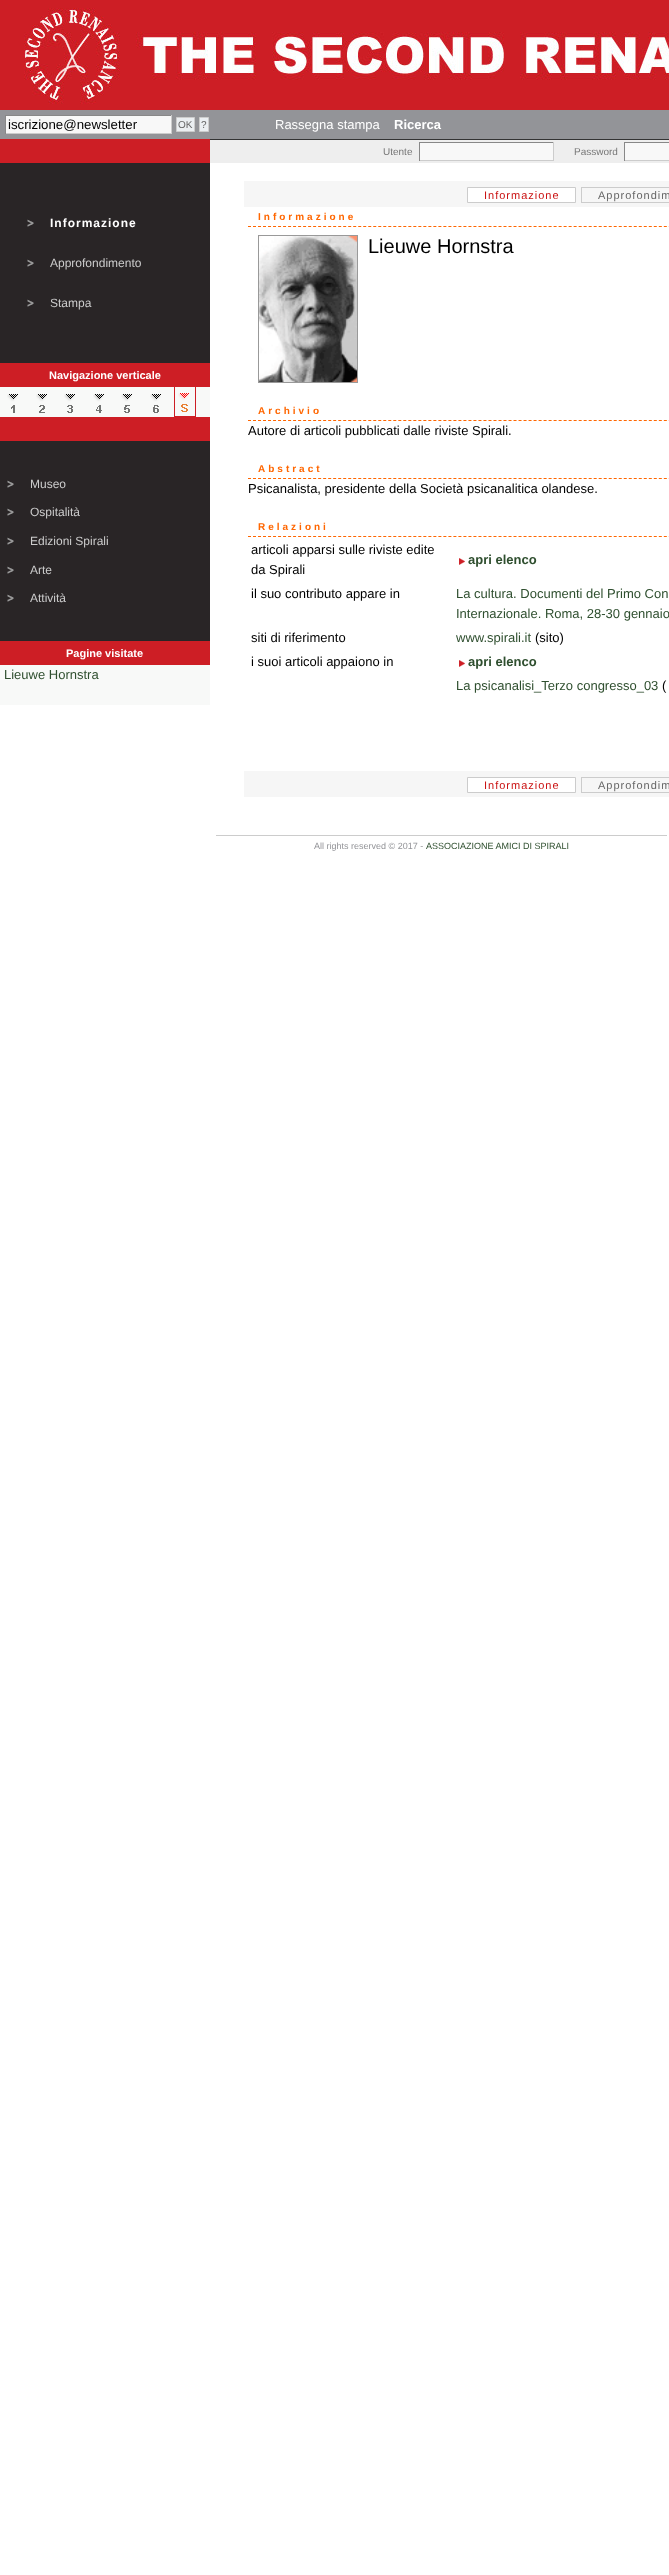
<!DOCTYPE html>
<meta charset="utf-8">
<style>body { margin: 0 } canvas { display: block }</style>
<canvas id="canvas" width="669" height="2575"></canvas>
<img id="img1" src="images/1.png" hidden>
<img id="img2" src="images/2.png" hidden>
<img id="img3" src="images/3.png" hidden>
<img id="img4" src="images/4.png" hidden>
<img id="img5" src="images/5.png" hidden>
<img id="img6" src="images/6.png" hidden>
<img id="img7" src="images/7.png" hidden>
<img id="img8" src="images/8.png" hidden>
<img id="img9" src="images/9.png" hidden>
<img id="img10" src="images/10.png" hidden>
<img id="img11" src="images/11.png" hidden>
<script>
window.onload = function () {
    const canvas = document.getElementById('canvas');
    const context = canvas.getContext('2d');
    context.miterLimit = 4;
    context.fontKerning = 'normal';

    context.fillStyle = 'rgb(255, 255, 255)';
    context.fillRect(0, 0, 669, 2575);
    context.fillStyle = 'rgb(205, 30, 37)';
    context.fillRect(0, 0, 669, 110);
    context.drawImage(document.getElementById('img1'), 24, 8, 645, 96);
    context.fillStyle = 'rgb(147, 148, 152)';
    context.fillRect(0, 110, 669, 29);
    context.fillStyle = 'rgb(248, 248, 248)';
    context.fillRect(6, 116, 165, 17);
    context.fillStyle = 'rgb(136, 136, 136)';
    context.fillRect(5, 115, 167, 1);
    context.fillStyle = 'rgb(204, 204, 204)';
    context.fillRect(171, 115, 1, 19);
    context.fillRect(5, 133, 167, 1);
    context.fillStyle = 'rgb(136, 136, 136)';
    context.fillRect(5, 115, 1, 19);
    context.fillStyle = 'rgb(235, 239, 242)';
    context.beginPath();
    context.rect(176.5, 117.5, 18, 14);
    context.fill();
    context.strokeStyle = 'rgb(204, 204, 204)';
    context.stroke();
    context.beginPath();
    context.rect(199.5, 117.5, 9, 14);
    context.fill();
    context.stroke();
    context.fillStyle = 'rgb(205, 30, 37)';
    context.fillRect(0, 139, 210, 24);
    context.fillStyle = 'rgb(238, 238, 238)';
    context.fillRect(210, 140, 459, 23);
    context.fillStyle = 'rgb(51, 51, 51)';
    context.fillRect(210, 139, 459, 1);
    context.fillStyle = 'rgb(248, 248, 248)';
    context.fillRect(420, 143, 133, 17);
    context.fillStyle = 'rgb(136, 136, 136)';
    context.fillRect(419, 142, 135, 1);
    context.fillStyle = 'rgb(204, 204, 204)';
    context.fillRect(553, 142, 1, 19);
    context.fillRect(419, 160, 135, 1);
    context.fillStyle = 'rgb(136, 136, 136)';
    context.fillRect(419, 142, 1, 19);
    context.fillStyle = 'rgb(248, 248, 248)';
    context.fillRect(625, 143, 44, 17);
    context.fillStyle = 'rgb(136, 136, 136)';
    context.fillRect(624, 142, 45, 1);
    context.fillStyle = 'rgb(204, 204, 204)';
    context.fillRect(624, 160, 45, 1);
    context.fillStyle = 'rgb(136, 136, 136)';
    context.fillRect(624, 142, 1, 19);
    context.fillStyle = 'rgb(41, 37, 38)';
    context.fillRect(0, 163, 210, 200);
    context.drawImage(document.getElementById('img2'), 27, 219, 7, 8);
    context.drawImage(document.getElementById('img2'), 27, 259, 7, 8);
    context.drawImage(document.getElementById('img2'), 27, 299, 7, 8);
    context.fillStyle = 'rgb(205, 30, 37)';
    context.fillRect(0, 363, 210, 24);
    context.fillStyle = 'rgb(248, 249, 248)';
    context.fillRect(0, 387, 210, 30);
    context.drawImage(document.getElementById('img3'), 7, 394, 11, 19);
    context.drawImage(document.getElementById('img4'), 36, 394, 11, 19);
    context.drawImage(document.getElementById('img5'), 64, 394, 11, 19);
    context.drawImage(document.getElementById('img6'), 93, 394, 11, 19);
    context.drawImage(document.getElementById('img7'), 121, 394, 11, 19);
    context.drawImage(document.getElementById('img8'), 150, 394, 11, 19);
    context.fillStyle = 'rgb(205, 30, 37)';
    context.fillRect(195, 387, 1, 30);
    context.fillRect(174, 416, 22, 1);
    context.fillRect(174, 387, 1, 30);
    context.drawImage(document.getElementById('img9'), 178, 393, 11, 19);
    context.fillRect(0, 417, 210, 24);
    context.fillStyle = 'rgb(41, 37, 38)';
    context.fillRect(0, 441, 210, 200);
    context.drawImage(document.getElementById('img2'), 7, 480, 7, 8);
    context.drawImage(document.getElementById('img2'), 7, 508, 7, 8);
    context.drawImage(document.getElementById('img2'), 7, 537, 7, 8);
    context.drawImage(document.getElementById('img2'), 7, 566, 7, 8);
    context.drawImage(document.getElementById('img2'), 7, 594, 7, 8);
    context.fillStyle = 'rgb(205, 30, 37)';
    context.fillRect(0, 641, 210, 24);
    context.fillStyle = 'rgb(248, 249, 248)';
    context.fillRect(0, 665, 210, 40);
    context.fillStyle = 'rgb(246, 246, 246)';
    context.fillRect(244, 181, 425, 26);
    context.fillStyle = 'rgb(255, 255, 255)';
    context.beginPath();
    context.rect(467.5, 187.5, 108, 15);
    context.fill();
    context.stroke();
    context.strokeRect(581.5, 187.5, 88, 15);
    context.beginPath();
    context.moveTo(248, 226.5);
    context.lineTo(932, 226.5);
    context.strokeStyle = 'rgb(255, 102, 0)';
    context.setLineDash([3, 2.01]);
    context.stroke();
    context.strokeStyle = 'rgb(153, 153, 153)';
    context.setLineDash([]);
    context.strokeRect(258.5, 235.5, 99, 147);
    context.drawImage(document.getElementById('img10'), 259, 236, 98, 146);
    context.beginPath();
    context.moveTo(248, 420.5);
    context.lineTo(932, 420.5);
    context.strokeStyle = 'rgb(255, 102, 0)';
    context.setLineDash([3, 2.01]);
    context.stroke();
    context.beginPath();
    context.moveTo(248, 478.5);
    context.lineTo(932, 478.5);
    context.stroke();
    context.beginPath();
    context.moveTo(248, 536.5);
    context.lineTo(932, 536.5);
    context.stroke();
    context.drawImage(document.getElementById('img11'), 459, 558, 6, 7);
    context.drawImage(document.getElementById('img11'), 459, 660, 6, 7);
    context.fillStyle = 'rgb(246, 246, 246)';
    context.fillRect(244, 771, 425, 26);
    context.fillStyle = 'rgb(255, 255, 255)';
    context.beginPath();
    context.rect(467.5, 777.5, 108, 15);
    context.fill();
    context.strokeStyle = 'rgb(204, 204, 204)';
    context.setLineDash([]);
    context.stroke();
    context.strokeRect(581.5, 777.5, 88, 15);
    context.fillStyle = 'rgb(204, 204, 204)';
    context.fillRect(216, 835, 451, 1);
    context.font = '13.25px Liberation Sans';
    context.fillStyle = 'rgb(0, 0, 0)';
    context.fillText('iscrizione@newsletter', 8, 129);
    context.font = '10px Liberation Sans';
    context.fillStyle = 'rgb(102, 102, 102)';
    context.fillText('OK', 178, 128);
    context.fillText('?', 201, 128);
    context.font = '13px Liberation Sans';
    context.fillStyle = 'rgb(255, 255, 255)';
    context.fillText('Rassegna stampa', 275, 129);
    context.font = 'bold 13px Liberation Sans';
    context.fillText('Ricerca', 394, 129);
    context.font = '10px Liberation Sans';
    context.fillStyle = 'rgb(119, 119, 119)';
    context.fillText('Utente', 383, 155);
    context.fillText('Password', 574, 155);
    context.letterSpacing = '1px';
    context.font = 'bold 12px Liberation Sans';
    context.fillStyle = 'rgb(255, 255, 255)';
    context.fillText('Informazione', 50, 227);
    context.letterSpacing = '0px';
    context.font = '12px Liberation Sans';
    context.fillStyle = 'rgb(204, 204, 204)';
    context.fillText('Approfondimento', 50, 267);
    context.fillText('Stampa', 50, 307);
    context.font = 'bold 11px Liberation Sans';
    context.fillStyle = 'rgb(255, 255, 255)';
    context.fillText('Navigazione verticale', 49, 379);
    context.font = '12px Liberation Sans';
    context.fillStyle = 'rgb(204, 204, 204)';
    context.fillText('Museo', 30, 488);
    context.fillText('Ospitalità', 30, 516);
    context.fillText('Edizioni Spirali', 30, 545);
    context.fillText('Arte', 30, 574);
    context.fillText('Attività', 30, 602);
    context.font = 'bold 11px Liberation Sans';
    context.fillStyle = 'rgb(255, 255, 255)';
    context.fillText('Pagine visitate', 66, 657);
    context.font = '13px Liberation Sans';
    context.fillStyle = 'rgb(47, 79, 47)';
    context.fillText('Lieuwe Hornstra', 4, 679);
    context.letterSpacing = '1px';
    context.font = '11px Liberation Sans';
    context.fillStyle = 'rgb(202, 16, 17)';
    context.fillText('Informazione', 484, 199);
    context.fillStyle = 'rgb(102, 102, 102)';
    context.fillText('Approfondim', 598, 199);
    context.letterSpacing = '3px';
    context.font = 'bold 10px Liberation Sans';
    context.fillStyle = 'rgb(255, 102, 0)';
    context.fillText('Informazione', 258, 220);
    context.letterSpacing = '0px';
    context.font = '20px Liberation Sans';
    context.fillStyle = 'rgb(0, 0, 0)';
    context.fillText('Lieuwe Hornstra', 368, 253);
    context.letterSpacing = '3px';
    context.font = 'bold 10px Liberation Sans';
    context.fillStyle = 'rgb(255, 102, 0)';
    context.fillText('Archivio', 258, 414);
    context.letterSpacing = '0px';
    context.font = '13px Liberation Sans';
    context.fillStyle = 'rgb(0, 0, 0)';
    context.fillText('Autore di articoli pubblicati dalle riviste Spirali.', 248, 435);
    context.letterSpacing = '3px';
    context.font = 'bold 10px Liberation Sans';
    context.fillStyle = 'rgb(255, 102, 0)';
    context.fillText('Abstract', 258, 472);
    context.letterSpacing = '0px';
    context.font = '13px Liberation Sans';
    context.fillStyle = 'rgb(0, 0, 0)';
    context.fillText('Psicanalista, presidente della Società psicanalitica olandese.', 248, 493);
    context.letterSpacing = '3px';
    context.font = 'bold 10px Liberation Sans';
    context.fillStyle = 'rgb(255, 102, 0)';
    context.fillText('Relazioni', 258, 530);
    context.letterSpacing = '0px';
    context.font = '13px Liberation Sans';
    context.fillStyle = 'rgb(0, 0, 0)';
    context.fillText('articoli apparsi sulle riviste edite', 251, 554);
    context.fillText('da Spirali', 251, 574);
    context.font = 'bold 13px Liberation Sans';
    context.fillStyle = 'rgb(47, 79, 47)';
    context.fillText('apri elenco', 468, 564);
    context.font = '13px Liberation Sans';
    context.fillStyle = 'rgb(0, 0, 0)';
    context.fillText('il suo contributo appare in', 251, 598);
    context.fillStyle = 'rgb(47, 79, 47)';
    context.fillText('La cultura. Documenti del Primo Con', 456, 598);
    context.fillText('Internazionale. Roma, 28-30 gennaio', 456, 618);
    context.fillStyle = 'rgb(0, 0, 0)';
    context.fillText('siti di riferimento', 251, 642);
    context.fillStyle = 'rgb(47, 79, 47)';
    context.fillText('www.spirali.it', 456, 642);
    context.fillStyle = 'rgb(0, 0, 0)';
    context.fillText('(sito)', 535, 642);
    context.fillText('i suoi articoli appaiono in', 251, 666);
    context.font = 'bold 13px Liberation Sans';
    context.fillStyle = 'rgb(47, 79, 47)';
    context.fillText('apri elenco', 468, 666);
    context.font = '13px Liberation Sans';
    context.fillText('La psicanalisi_Terzo congresso_03', 456, 690);
    context.fillStyle = 'rgb(0, 0, 0)';
    context.fillText('(', 662, 690);
    context.letterSpacing = '1px';
    context.font = '11px Liberation Sans';
    context.fillStyle = 'rgb(202, 16, 17)';
    context.fillText('Informazione', 484, 789);
    context.fillStyle = 'rgb(102, 102, 102)';
    context.fillText('Approfondim', 598, 789);
    context.letterSpacing = '0px';
    context.font = '9px Liberation Sans';
    context.fillStyle = 'rgb(147, 148, 152)';
    context.fillText('All rights reserved © 2017 -', 314, 849);
    context.fillStyle = 'rgb(47, 79, 47)';
    context.fillText('ASSOCIAZIONE AMICI DI SPIRALI', 426, 849);
};
</script>
